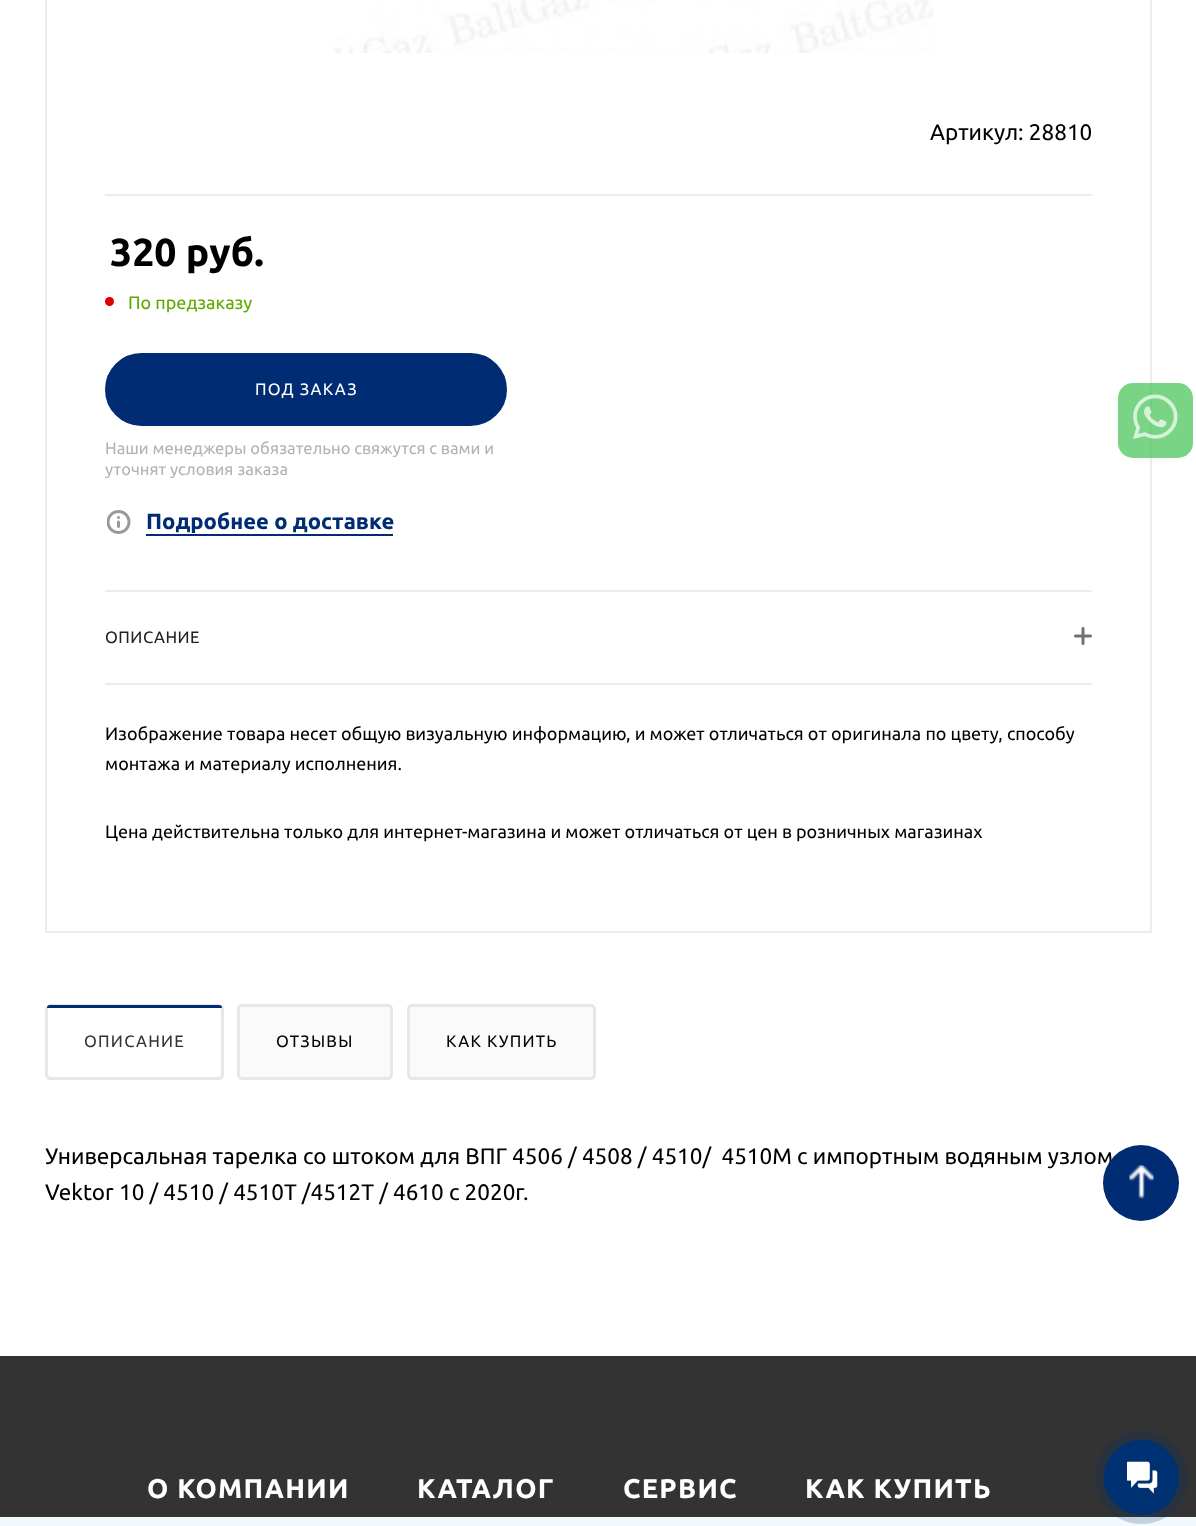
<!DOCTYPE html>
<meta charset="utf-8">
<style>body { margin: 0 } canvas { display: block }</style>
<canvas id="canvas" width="1196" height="1526"></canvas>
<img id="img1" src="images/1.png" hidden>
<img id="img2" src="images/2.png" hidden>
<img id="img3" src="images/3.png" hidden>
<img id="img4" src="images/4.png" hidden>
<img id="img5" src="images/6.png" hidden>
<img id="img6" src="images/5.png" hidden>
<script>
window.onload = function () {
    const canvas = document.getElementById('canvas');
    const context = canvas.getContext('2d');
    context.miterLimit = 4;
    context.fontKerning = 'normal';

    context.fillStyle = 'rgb(255, 255, 255)';
    context.fillRect(0, 0, 1196, 1526);
    context.strokeStyle = 'rgb(236, 236, 236)';
    context.lineWidth = 2;
    context.strokeRect(46, -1, 1105, 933);
    context.drawImage(document.getElementById('img1'), 333, 0, 601, 53);
    context.fillStyle = 'rgb(236, 236, 236)';
    context.fillRect(105, 194, 987, 2);
    context.fillStyle = 'rgb(225, 0, 0)';
    context.beginPath();
    context.arc(109.5, 301.5, 4.5, 0, 2 * Math.PI);
    context.fill();
    context.fillStyle = 'rgb(0, 44, 116)';
    context.beginPath();
    context.roundRect(106, 354, 400, 71, 35.5);
    context.fill();
    context.strokeStyle = 'rgb(0, 44, 116)';
    context.stroke();
    context.drawImage(document.getElementById('img2'), 107, 510, 24, 24);
    context.fillRect(146, 534, 247, 2);
    context.fillStyle = 'rgb(236, 236, 236)';
    context.fillRect(105, 590, 987, 2);
    context.fillRect(105, 683, 987, 2);
    context.drawImage(document.getElementById('img3'), 1074, 627, 18, 18);
    context.fillStyle = 'rgb(250, 250, 250)';
    context.beginPath();
    context.roundRect(46.5, 1005.5, 176, 73, 3.5);
    context.fill();
    context.strokeStyle = 'rgb(231, 231, 231)';
    context.lineWidth = 3;
    context.stroke();
    context.fillStyle = 'rgb(255, 255, 255)';
    context.beginPath();
    context.roundRect(48, 1007, 173, 70, 5);
    context.fill();
    context.fillStyle = 'rgb(0, 44, 116)';
    context.beginPath();
    context.roundRect(47, 1005, 175, 3, [3, 3, 0, 0]);
    context.fill();
    context.fillStyle = 'rgb(250, 250, 250)';
    context.beginPath();
    context.roundRect(238.5, 1005.5, 153, 73, 3.5);
    context.fill();
    context.stroke();
    context.beginPath();
    context.roundRect(408.5, 1005.5, 186, 73, 3.5);
    context.fill();
    context.stroke();
    context.fillStyle = 'rgba(64, 195, 81, 0.7)';
    context.beginPath();
    context.roundRect(1118, 383, 75, 75, 15);
    context.fill();
    context.drawImage(document.getElementById('img4'), 1133, 394, 45, 45);
    context.fillStyle = 'rgb(51, 51, 51)';
    context.fillRect(0, 1356, 1196, 161);
    context.fillStyle = 'rgb(241, 249, 252)';
    context.fillRect(0, 1517, 1196, 9);
    context.fillStyle = 'rgba(0, 49, 114, 0.2)';
    context.beginPath();
    context.arc(1141.5, 1477.5, 46.5, 0, 2 * Math.PI);
    context.fill();
    context.beginPath();
    context.arc(1141.5, 1477.5, 37, 0, 2 * Math.PI);
    context.strokeStyle = 'rgb(0, 49, 114)';
    context.lineWidth = 1;
    context.stroke();
    context.fillStyle = 'rgb(0, 49, 114)';
    context.beginPath();
    context.arc(1141.5, 1477.5, 37.5, 0, 2 * Math.PI);
    context.fill();
    context.drawImage(document.getElementById('img5'), 1127, 1461, 31, 33);
    context.font = '22.5px Ubuntu';
    context.fillStyle = 'rgb(0, 0, 0)';
    context.fillText('Артикул: 28810', 930, 140);
    context.font = 'bold 39px Ubuntu';
    context.fillText('320 руб.', 110, 266);
    context.font = '18px Ubuntu';
    context.fillStyle = 'rgb(95, 168, 0)';
    context.fillText('По предзаказу', 128, 309);
    context.letterSpacing = '1.25px';
    context.font = '16.5px Ubuntu';
    context.fillStyle = 'rgb(255, 255, 255)';
    context.fillText('ПОД ЗАКАЗ', 255, 395);
    context.letterSpacing = '0px';
    context.fillStyle = 'rgb(179, 179, 179)';
    context.fillText('Наши менеджеры обязательно свяжутся с вами и', 105, 454);
    context.fillText('уточнят условия заказа', 105, 475);
    context.font = 'bold 22px Ubuntu';
    context.fillStyle = 'rgb(0, 44, 116)';
    context.fillText('Подробнее о доставке', 146, 529);
    context.letterSpacing = '0.5px';
    context.font = '16.5px Ubuntu';
    context.fillStyle = 'rgb(34, 34, 34)';
    context.fillText('ОПИСАНИЕ', 105, 643);
    context.letterSpacing = '0px';
    context.font = '18px Ubuntu';
    context.fillStyle = 'rgb(0, 0, 0)';
    context.fillText('Изображение товара несет общую визуальную информацию, и может отличаться от оригинала по цвету, способу', 105, 740);
    context.fillText('монтажа и материалу исполнения.', 105, 770);
    context.fillText('Цена действительна только для интернет-магазина и может отличаться от цен в розничных магазинах', 105, 838);
    context.letterSpacing = '1.25px';
    context.font = '16.5px Ubuntu';
    context.fillStyle = 'rgb(51, 51, 51)';
    context.fillText('ОПИСАНИЕ', 84, 1047);
    context.fillStyle = 'rgb(0, 0, 0)';
    context.fillText('ОТЗЫВЫ', 276, 1047);
    context.fillText('КАК КУПИТЬ', 446, 1047);
    context.letterSpacing = '0px';
    context.font = '22.5px Ubuntu';
    context.fillText('Универсальная тарелка со штоком для ВПГ 4506 / 4508 / 4510/  4510М с импортным водяным узлом', 45, 1164);
    context.fillText('Vektor 10 / 4510 / 4510Т /4512Т / 4610 с 2020г.', 45, 1200);
    context.fillStyle = 'rgb(0, 44, 116)';
    context.beginPath();
    context.arc(1141, 1183, 38, 0, 2 * Math.PI);
    context.fill();
    context.drawImage(document.getElementById('img6'), 1129, 1165, 25, 34);
    context.letterSpacing = '1.25px';
    context.font = 'bold 27px Ubuntu';
    context.fillStyle = 'rgb(255, 255, 255)';
    context.fillText('О КОМПАНИИ', 147, 1498);
    context.fillText('КАТАЛОГ', 417, 1498);
    context.fillText('СЕРВИС', 623, 1498);
    context.fillText('КАК КУПИТЬ', 805, 1498);
};
</script>
